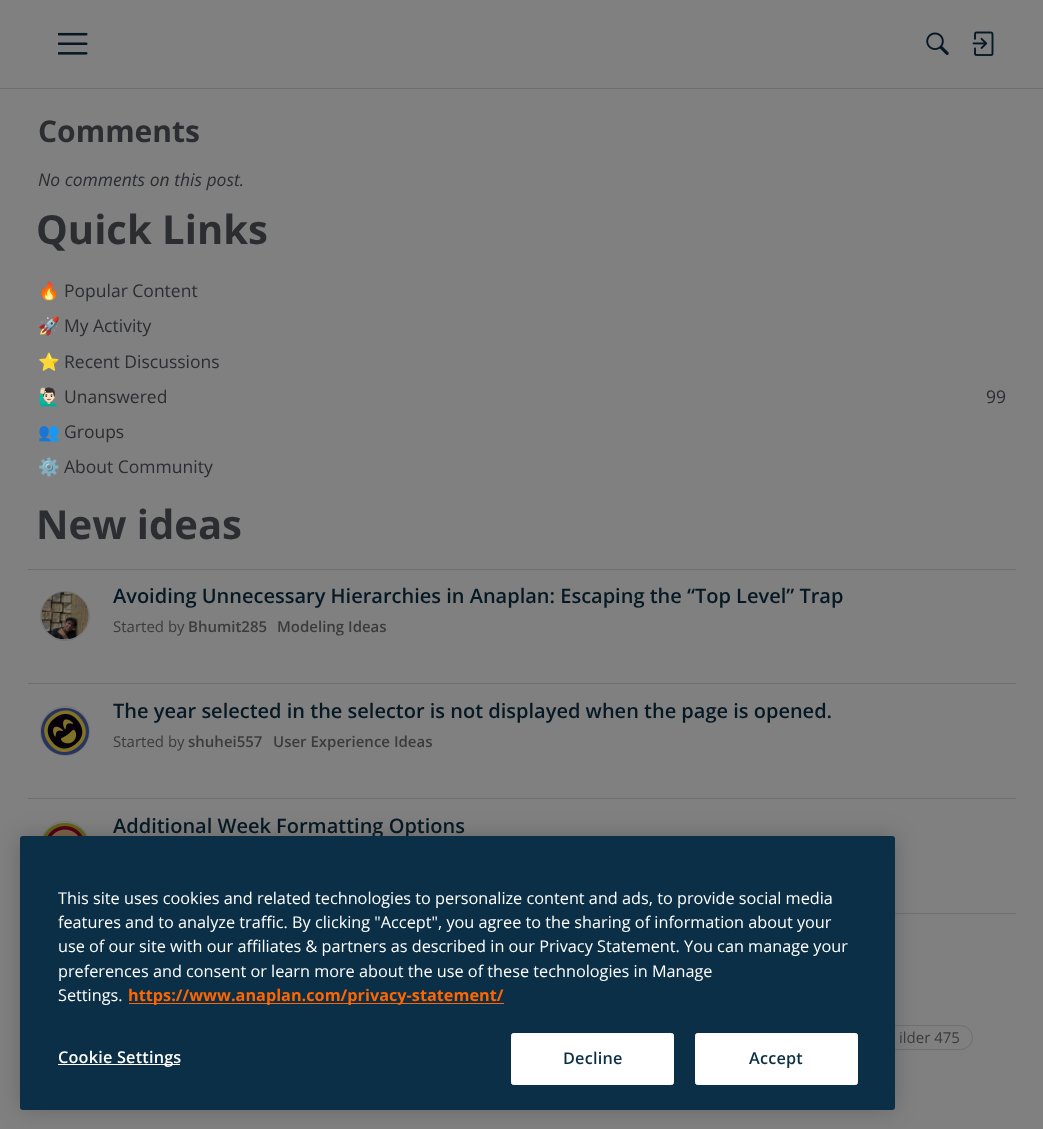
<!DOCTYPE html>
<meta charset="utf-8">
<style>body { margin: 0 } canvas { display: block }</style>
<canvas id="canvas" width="1043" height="1129"></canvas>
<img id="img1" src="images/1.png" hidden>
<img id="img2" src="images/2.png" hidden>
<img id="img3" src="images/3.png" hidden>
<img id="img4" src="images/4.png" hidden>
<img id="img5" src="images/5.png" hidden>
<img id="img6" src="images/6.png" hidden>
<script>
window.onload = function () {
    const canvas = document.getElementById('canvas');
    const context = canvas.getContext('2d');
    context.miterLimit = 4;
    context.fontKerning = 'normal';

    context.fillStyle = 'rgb(128, 128, 128)';
    context.fillRect(0, 0, 1043, 1129);
    context.fillStyle = 'rgb(111, 111, 112)';
    context.fillRect(0, 88, 1043, 1);
    context.drawImage(document.getElementById('img1'), 58, 32, 30, 23);
    context.drawImage(document.getElementById('img2'), 926, 32, 23, 23);
    context.drawImage(document.getElementById('img3'), 972, 31, 22, 25);
    context.fillRect(28, 569, 988, 1);
    context.beginPath();
    context.arc(65, 616, 24.5, 0, 2 * Math.PI);
    context.strokeStyle = 'rgb(115, 115, 116)';
    context.stroke();
    context.drawImage(document.getElementById('img4'), 41, 592, 48, 48);
    context.fillRect(28, 683, 988, 1);
    context.beginPath();
    context.arc(65, 731, 24.5, 0, 2 * Math.PI);
    context.stroke();
    context.drawImage(document.getElementById('img5'), 41, 708, 48, 47);
    context.fillRect(28, 798, 988, 1);
    context.beginPath();
    context.arc(65, 846, 24.5, 0, 2 * Math.PI);
    context.stroke();
    context.drawImage(document.getElementById('img6'), 43, 823, 44, 13);
    context.fillRect(895, 913, 121, 1);
    context.beginPath();
    context.roundRect(820.5, 1025.5, 152, 24, 12);
    context.strokeStyle = 'rgb(111, 111, 112)';
    context.stroke();
    context.fillStyle = 'rgba(0, 0, 0, 0.2)';
    context.filter = 'blur(11px)';
    context.beginPath();
    context.roundRect(20, 836, 875, 274, 3);
    context.fill();
    context.filter = 'none';
    context.font = 'bold 30px Open Sans';
    context.fillStyle = 'rgb(43, 45, 49)';
    context.fillText('Comments', 38, 142);
    context.font = 'italic 17.5px Open Sans';
    context.fillText('No comments on this post.', 38, 186);
    context.font = 'bold 40px Open Sans';
    context.fillText('Quick Links', 36, 244);
    context.font = '17.5px Noto Color Emoji';
    context.fillText('🔥', 38, 297);
    context.font = '17.5px Open Sans';
    context.fillText('Popular Content', 64, 297);
    context.font = '17.5px Noto Color Emoji';
    context.fillText('🚀', 38, 332);
    context.font = '17.5px Open Sans';
    context.fillText('My Activity', 64, 332);
    context.font = '17.5px Noto Color Emoji';
    context.fillText('⭐️', 38, 368);
    context.font = '17.5px Open Sans';
    context.fillText('Recent Discussions', 64, 368);
    context.font = '17.5px Noto Color Emoji';
    context.fillText('🙋🏻‍♂️', 38, 403);
    context.font = '17.5px Open Sans';
    context.fillText('Unanswered', 64, 403);
    context.fillText('99', 986, 403);
    context.font = '17.5px Noto Color Emoji';
    context.fillText('👥', 38, 438);
    context.font = '17.5px Open Sans';
    context.fillText('Groups', 64, 438);
    context.font = '17.5px Noto Color Emoji';
    context.fillText('⚙️', 38, 473);
    context.font = '17.5px Open Sans';
    context.fillText('About Community', 64, 473);
    context.font = 'bold 40px Open Sans';
    context.fillText('New ideas', 36, 539);
    context.font = '600 20px Open Sans';
    context.fillStyle = 'rgb(5, 24, 35)';
    context.fillText('Avoiding Unnecessary Hierarchies in Anaplan: Escaping the “Top Level” Trap', 113, 603);
    context.font = '15px Open Sans';
    context.fillStyle = 'rgb(59, 59, 59)';
    context.fillText('Started by', 113, 632);
    context.font = '600 15px Open Sans';
    context.fillText('Bhumit285', 188, 632);
    context.fillText('Modeling Ideas', 277, 632);
    context.font = '600 20px Open Sans';
    context.fillStyle = 'rgb(5, 24, 35)';
    context.fillText('The year selected in the selector is not displayed when the page is opened.', 113, 718);
    context.font = '15px Open Sans';
    context.fillStyle = 'rgb(59, 59, 59)';
    context.fillText('Started by', 113, 747);
    context.font = '600 15px Open Sans';
    context.fillText('shuhei557', 188, 747);
    context.fillText('User Experience Ideas', 273, 747);
    context.font = '600 20px Open Sans';
    context.fillStyle = 'rgb(5, 24, 35)';
    context.fillText('Additional Week Formatting Options', 113, 833);
    context.font = '15px Open Sans';
    context.fillStyle = 'rgb(59, 59, 59)';
    context.fillText('ilder 475', 899, 1043);
    context.fillStyle = 'rgb(10, 47, 70)';
    context.beginPath();
    context.roundRect(20, 836, 875, 274, 3);
    context.fill();
    context.font = '16.25px Open Sans';
    context.fillStyle = 'rgb(255, 255, 255)';
    context.fillText('This site uses cookies and related technologies to personalize content and ads, to provide social media', 58, 904);
    context.fillText('features and to analyze traffic. By clicking "Accept", you agree to the sharing of information about your', 58, 928);
    context.fillText('use of our site with our affiliates & partners as described in our Privacy Statement. You can manage your', 58, 952);
    context.fillText('preferences and consent or learn more about the use of these technologies in Manage', 58, 977);
    context.fillText('Settings.', 58, 1001);
    context.fillStyle = 'rgb(255, 102, 0)';
    context.fillRect(129, 1003, 375, 1);
    context.font = 'bold 16.25px Open Sans';
    context.fillText('https://www.anaplan.com/privacy-statement/', 128, 1001);
    context.fillStyle = 'rgb(255, 255, 255)';
    context.fillRect(58, 1064, 122, 1);
    context.letterSpacing = '0.2px';
    context.font = '600 16.25px Open Sans';
    context.fillText('Cookie Settings', 58, 1063);
    context.beginPath();
    context.roundRect(511.5, 1033.5, 162, 51, 2);
    context.fill();
    context.strokeStyle = 'rgb(255, 255, 255)';
    context.stroke();
    context.fillStyle = 'rgb(10, 47, 70)';
    context.fillText('Decline', 563, 1064);
    context.fillStyle = 'rgb(255, 255, 255)';
    context.beginPath();
    context.roundRect(695.5, 1033.5, 162, 51, 2);
    context.fill();
    context.stroke();
    context.fillStyle = 'rgb(10, 47, 70)';
    context.fillText('Accept', 749, 1064);
};
</script>
